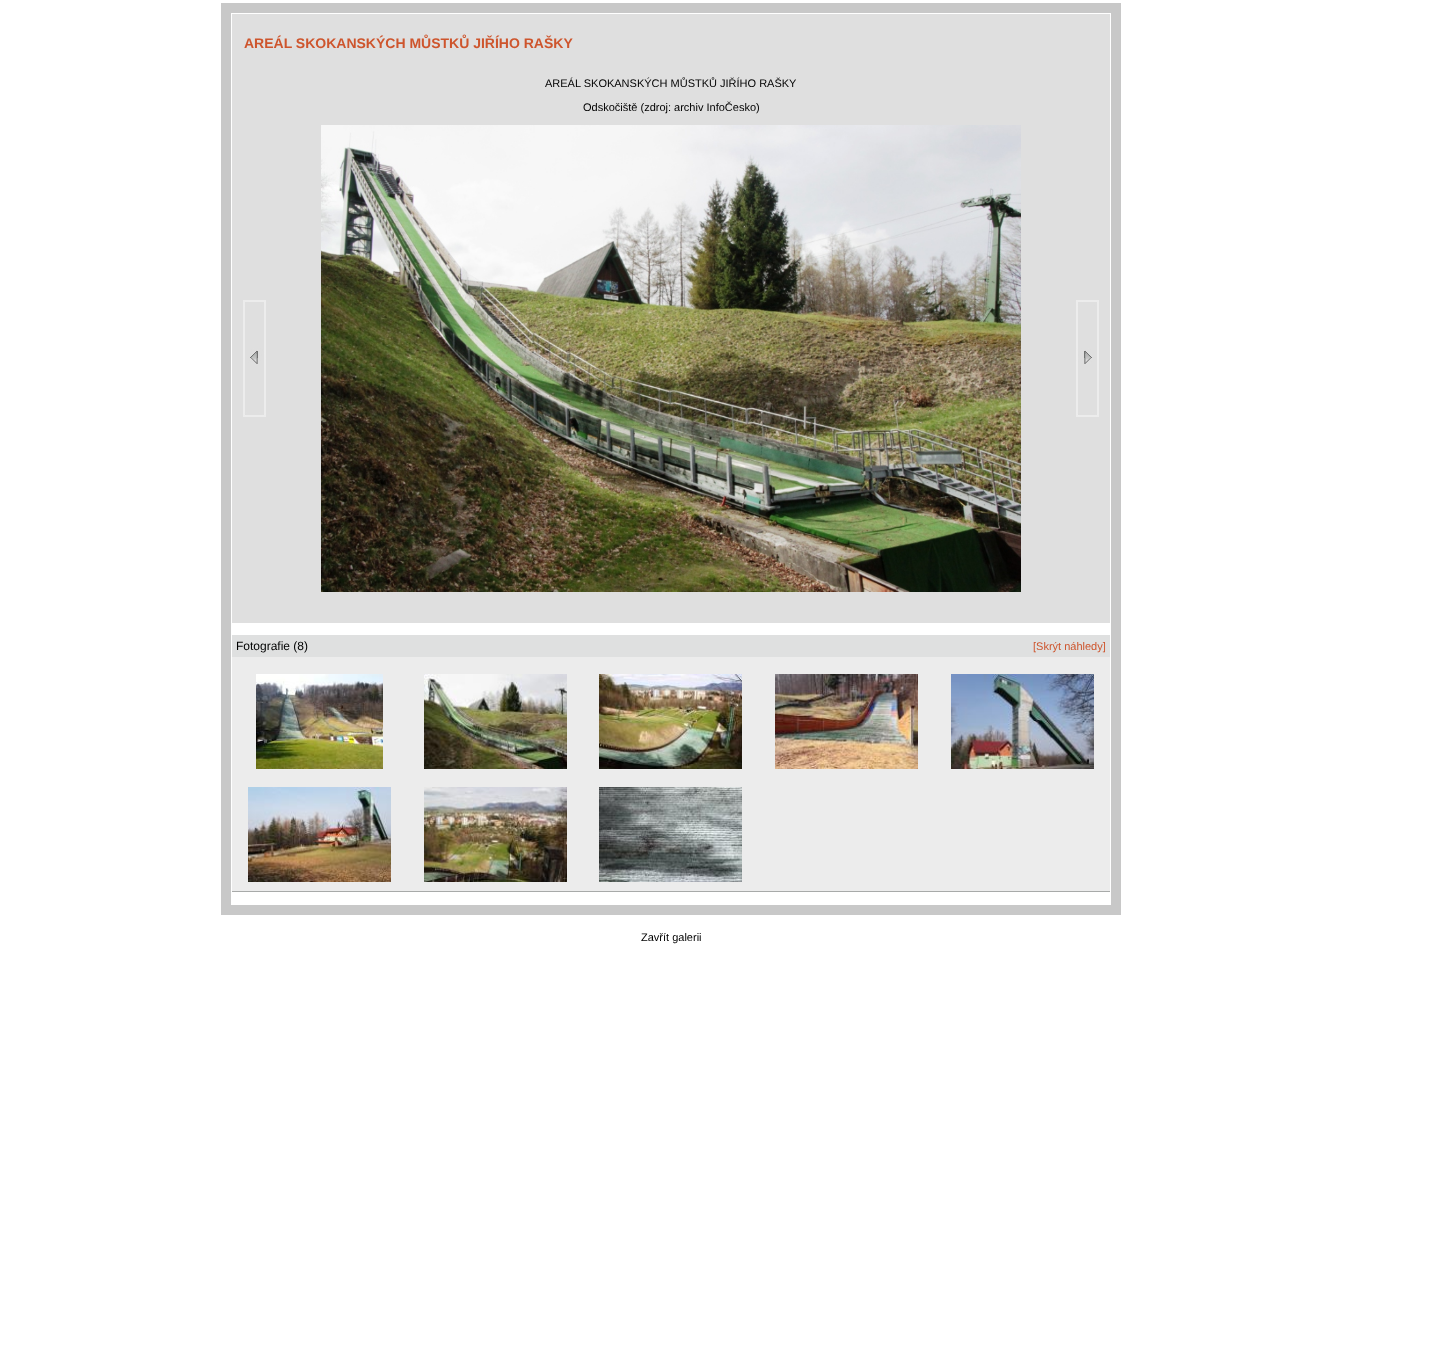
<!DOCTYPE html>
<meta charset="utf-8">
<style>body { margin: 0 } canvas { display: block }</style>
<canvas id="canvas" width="1441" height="1355"></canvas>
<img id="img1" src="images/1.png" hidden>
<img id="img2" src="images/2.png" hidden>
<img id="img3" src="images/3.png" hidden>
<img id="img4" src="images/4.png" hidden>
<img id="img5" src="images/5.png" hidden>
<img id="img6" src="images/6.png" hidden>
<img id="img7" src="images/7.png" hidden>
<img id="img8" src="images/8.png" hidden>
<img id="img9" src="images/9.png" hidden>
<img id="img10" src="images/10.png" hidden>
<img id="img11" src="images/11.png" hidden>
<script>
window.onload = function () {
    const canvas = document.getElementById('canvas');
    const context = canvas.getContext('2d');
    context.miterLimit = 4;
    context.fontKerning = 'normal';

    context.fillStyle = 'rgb(255, 255, 255)';
    context.fillRect(0, 0, 1441, 1355);
    context.fillStyle = 'rgb(200, 200, 200)';
    context.fillRect(231, 3, 880, 10);
    context.fillRect(1111, 3, 10, 902);
    context.fillRect(231, 905, 890, 10);
    context.fillRect(221, 3, 10, 912);
    context.fillStyle = 'rgb(223, 223, 223)';
    context.fillRect(232, 14, 878, 609);
    context.drawImage(document.getElementById('img1'), 243, 300, 23, 117);
    context.drawImage(document.getElementById('img2'), 321, 125, 700, 467);
    context.drawImage(document.getElementById('img3'), 1076, 300, 23, 117);
    context.fillStyle = 'rgb(223, 224, 224)';
    context.fillRect(232, 635, 878, 22);
    context.fillStyle = 'rgb(236, 236, 236)';
    context.fillRect(232, 657, 878, 234);
    context.drawImage(document.getElementById('img4'), 256, 674, 127, 95);
    context.drawImage(document.getElementById('img5'), 424, 674, 143, 95);
    context.drawImage(document.getElementById('img6'), 599, 674, 143, 95);
    context.drawImage(document.getElementById('img7'), 775, 674, 143, 95);
    context.drawImage(document.getElementById('img8'), 951, 674, 143, 95);
    context.drawImage(document.getElementById('img9'), 248, 787, 143, 95);
    context.drawImage(document.getElementById('img10'), 424, 787, 143, 95);
    context.drawImage(document.getElementById('img11'), 599, 787, 143, 95);
    context.fillStyle = 'rgb(168, 170, 169)';
    context.fillRect(232, 891, 878, 1);
    context.font = 'bold 14px Liberation Sans';
    context.fillStyle = 'rgb(206, 85, 45)';
    context.fillText('AREÁL SKOKANSKÝCH MŮSTKŮ JIŘÍHO RAŠKY', 244, 48);
    context.font = '11px Liberation Sans';
    context.fillStyle = 'rgb(0, 0, 0)';
    context.fillText('AREÁL SKOKANSKÝCH MŮSTKŮ JIŘÍHO RAŠKY', 545, 87);
    context.fillText('Odskočiště (zdroj: archiv InfoČesko)', 583, 111);
    context.font = '12px Liberation Sans';
    context.fillText('Fotografie (8)', 236, 650);
    context.font = '11px Liberation Sans';
    context.fillStyle = 'rgb(206, 85, 45)';
    context.fillText('[Skrýt náhledy]', 1033, 650);
    context.fillStyle = 'rgb(0, 0, 0)';
    context.fillText('Zavřít galerii', 641, 941);
};
</script>
